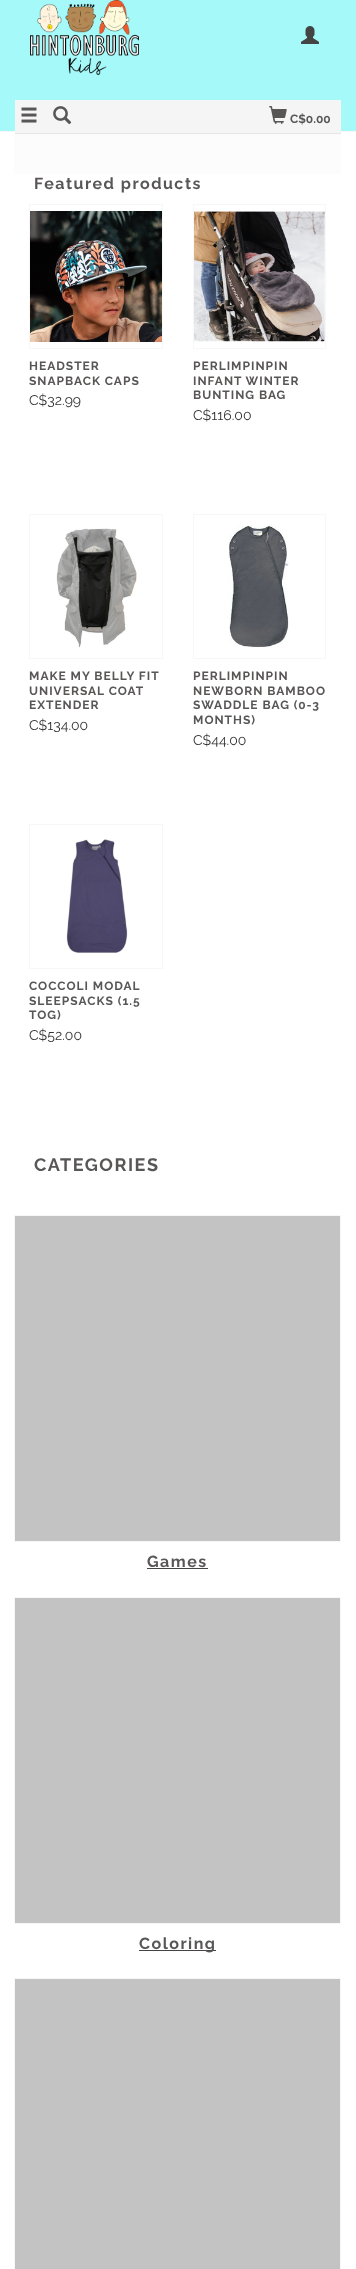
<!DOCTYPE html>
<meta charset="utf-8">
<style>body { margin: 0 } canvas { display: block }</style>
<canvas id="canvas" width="356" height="2269"></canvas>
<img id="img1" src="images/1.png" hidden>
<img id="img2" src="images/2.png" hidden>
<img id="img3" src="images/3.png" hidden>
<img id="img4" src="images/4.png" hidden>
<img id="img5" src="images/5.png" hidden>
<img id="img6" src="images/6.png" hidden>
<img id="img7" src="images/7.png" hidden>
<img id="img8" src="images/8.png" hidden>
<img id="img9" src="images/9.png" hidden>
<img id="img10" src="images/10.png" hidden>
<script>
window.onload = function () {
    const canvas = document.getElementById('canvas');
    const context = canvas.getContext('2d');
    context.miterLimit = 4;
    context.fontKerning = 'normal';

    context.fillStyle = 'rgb(255, 255, 255)';
    context.fillRect(0, 0, 356, 2269);
    context.fillStyle = 'rgb(166, 249, 249)';
    context.fillRect(0, 0, 356, 131);
    context.fillStyle = 'rgb(247, 247, 247)';
    context.fillRect(0, 131, 356, 1);
    context.drawImage(document.getElementById('img1'), 30, 0, 109, 75);
    context.drawImage(document.getElementById('img2'), 301, 26, 18, 18);
    context.fillStyle = 'rgb(245, 245, 245)';
    context.fillRect(15, 100, 326, 33);
    context.drawImage(document.getElementById('img3'), 21, 107, 16, 16);
    context.drawImage(document.getElementById('img4'), 53, 106, 19, 19);
    context.drawImage(document.getElementById('img5'), 269, 106, 18, 18);
    context.fillStyle = 'rgb(229, 229, 229)';
    context.fillRect(15, 133, 326, 1);
    context.fillStyle = 'rgb(252, 252, 252)';
    context.fillRect(14, 134, 327, 40);
    context.strokeStyle = 'rgb(247, 247, 247)';
    context.strokeRect(29.5, 204.5, 133, 144);
    context.drawImage(document.getElementById('img6'), 30, 211, 132, 131);
    context.strokeRect(193.5, 204.5, 132, 144);
    context.drawImage(document.getElementById('img7'), 194, 211, 131, 131);
    context.strokeRect(29.5, 514.5, 133, 144);
    context.drawImage(document.getElementById('img8'), 56, 528, 81, 120);
    context.strokeRect(193.5, 514.5, 132, 144);
    context.drawImage(document.getElementById('img9'), 228, 525, 61, 123);
    context.strokeRect(29.5, 824.5, 133, 144);
    context.drawImage(document.getElementById('img10'), 66, 839, 62, 114);
    context.strokeRect(14.5, 1215.5, 326, 326);
    context.fillStyle = 'rgb(195, 195, 195)';
    context.fillRect(15, 1216, 325, 325);
    context.fillStyle = 'rgb(68, 68, 68)';
    context.fillRect(147, 1568, 61, 1);
    context.strokeRect(14.5, 1597.5, 326, 326);
    context.fillStyle = 'rgb(195, 195, 195)';
    context.fillRect(15, 1598, 325, 325);
    context.fillStyle = 'rgb(68, 68, 68)';
    context.fillRect(139, 1950, 77, 1);
    context.strokeRect(14.5, 1978.5, 326, 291);
    context.fillStyle = 'rgb(195, 195, 195)';
    context.fillRect(15, 1979, 325, 290);
    context.font = 'bold 12px Raleway';
    context.fillStyle = 'rgb(89, 86, 86)';
    context.fillText('C$0.00', 290, 123);
    context.letterSpacing = '1.5px';
    context.font = 'bold 16px Raleway';
    context.fillText('Featured products', 34, 189);
    context.letterSpacing = '1px';
    context.font = 'bold 12px Raleway';
    context.fillText('HEADSTER', 29, 370);
    context.fillText('SNAPBACK CAPS', 29, 385);
    context.letterSpacing = '0px';
    context.font = '14px Raleway';
    context.fillStyle = 'rgb(51, 51, 51)';
    context.fillText('C$32.99', 29, 405);
    context.letterSpacing = '1px';
    context.font = 'bold 12px Raleway';
    context.fillStyle = 'rgb(89, 86, 86)';
    context.fillText('PERLIMPINPIN', 193, 370);
    context.fillText('INFANT WINTER', 193, 385);
    context.fillText('BUNTING BAG', 193, 399);
    context.letterSpacing = '0px';
    context.font = '14px Raleway';
    context.fillStyle = 'rgb(51, 51, 51)';
    context.fillText('C$116.00', 193, 420);
    context.letterSpacing = '1px';
    context.font = 'bold 12px Raleway';
    context.fillStyle = 'rgb(89, 86, 86)';
    context.fillText('MAKE MY BELLY FIT', 29, 680);
    context.fillText('UNIVERSAL COAT', 29, 695);
    context.fillText('EXTENDER', 29, 709);
    context.letterSpacing = '0px';
    context.font = '14px Raleway';
    context.fillStyle = 'rgb(51, 51, 51)';
    context.fillText('C$134.00', 29, 730);
    context.letterSpacing = '1px';
    context.font = 'bold 12px Raleway';
    context.fillStyle = 'rgb(89, 86, 86)';
    context.fillText('PERLIMPINPIN', 193, 680);
    context.fillText('NEWBORN BAMBOO', 193, 695);
    context.fillText('SWADDLE BAG (0-3', 193, 709);
    context.fillText('MONTHS)', 193, 724);
    context.letterSpacing = '0px';
    context.font = '14px Raleway';
    context.fillStyle = 'rgb(51, 51, 51)';
    context.fillText('C$44.00', 193, 745);
    context.letterSpacing = '1px';
    context.font = 'bold 12px Raleway';
    context.fillStyle = 'rgb(89, 86, 86)';
    context.fillText('COCCOLI MODAL', 29, 990);
    context.fillText('SLEEPSACKS (1.5', 29, 1005);
    context.fillText('TOG)', 29, 1019);
    context.letterSpacing = '0px';
    context.font = '14px Raleway';
    context.fillStyle = 'rgb(51, 51, 51)';
    context.fillText('C$52.00', 29, 1040);
    context.letterSpacing = '1.5px';
    context.font = 'bold 18px Raleway';
    context.fillStyle = 'rgb(89, 86, 86)';
    context.fillText('CATEGORIES', 34, 1171);
    context.font = 'bold 16px Raleway';
    context.fillText('Games', 147, 1567);
    context.fillText('Coloring', 139, 1949);
};
</script>
